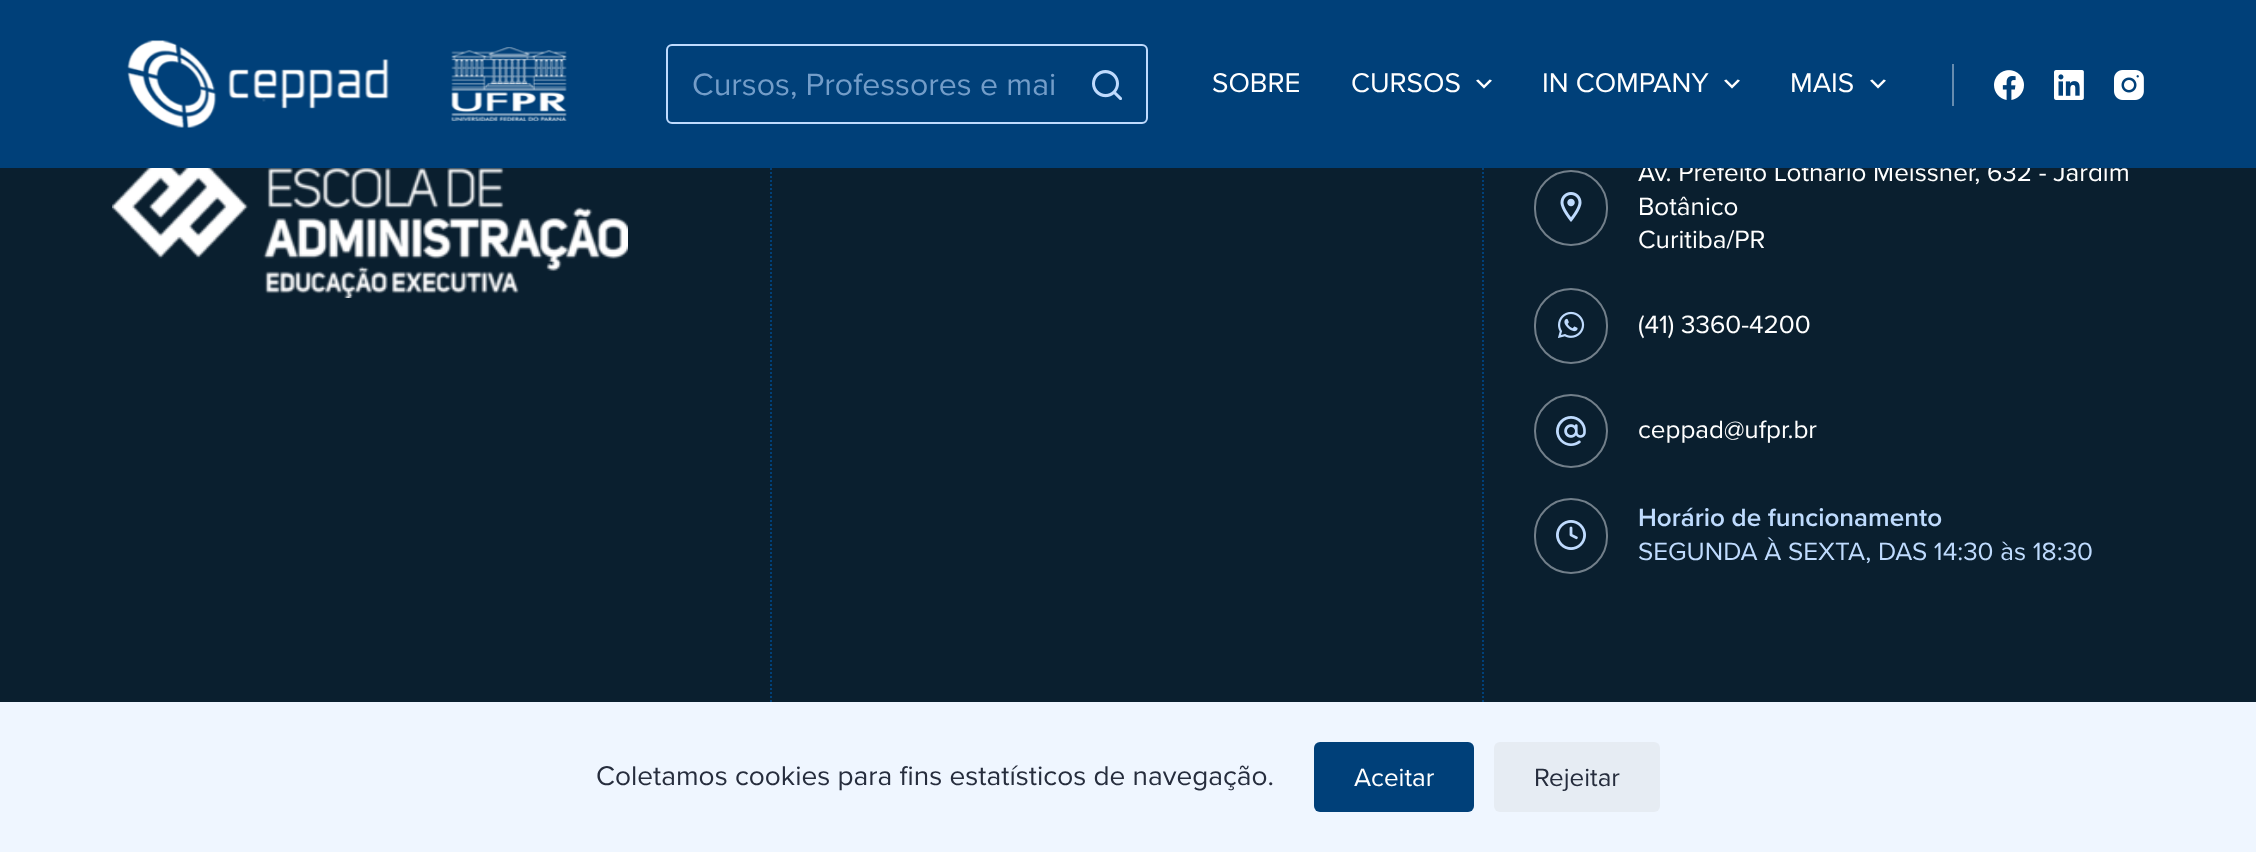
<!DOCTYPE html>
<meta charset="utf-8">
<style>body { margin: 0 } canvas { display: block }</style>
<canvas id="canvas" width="2256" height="852"></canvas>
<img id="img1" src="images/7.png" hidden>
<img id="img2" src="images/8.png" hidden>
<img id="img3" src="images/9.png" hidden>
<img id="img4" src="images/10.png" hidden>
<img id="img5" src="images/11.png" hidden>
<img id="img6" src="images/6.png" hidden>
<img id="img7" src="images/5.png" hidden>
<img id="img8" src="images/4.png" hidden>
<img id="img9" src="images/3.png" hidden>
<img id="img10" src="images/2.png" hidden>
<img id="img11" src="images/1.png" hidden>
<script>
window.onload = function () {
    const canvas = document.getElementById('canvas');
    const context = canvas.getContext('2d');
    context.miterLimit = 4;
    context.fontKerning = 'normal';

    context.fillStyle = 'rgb(10, 31, 47)';
    context.fillRect(0, 0, 2256, 852);
    context.drawImage(document.getElementById('img1'), 112, 168, 516, 130);
    context.beginPath();
    context.moveTo(771, 16);
    context.lineTo(771, 714);
    context.strokeStyle = 'rgb(0, 64, 121)';
    context.lineWidth = 2;
    context.setLineDash([2, 2]);
    context.stroke();
    context.beginPath();
    context.moveTo(1483, 16);
    context.lineTo(1483, 714);
    context.stroke();
    context.beginPath();
    context.roundRect(1535, 171, 72, 74, 36);
    context.strokeStyle = 'rgb(114, 127, 138)';
    context.setLineDash([]);
    context.stroke();
    context.drawImage(document.getElementById('img2'), 1560, 192, 22, 30);
    context.beginPath();
    context.roundRect(1535, 289, 72, 74, 36);
    context.stroke();
    context.drawImage(document.getElementById('img3'), 1558, 311, 27, 27);
    context.beginPath();
    context.arc(1571, 431, 36, 0, 2 * Math.PI);
    context.stroke();
    context.drawImage(document.getElementById('img4'), 1556, 416, 30, 30);
    context.beginPath();
    context.roundRect(1535, 499, 72, 74, 36);
    context.stroke();
    context.drawImage(document.getElementById('img5'), 1556, 520, 30, 30);
    context.fillStyle = 'rgb(239, 246, 255)';
    context.fillRect(0, 702, 2256, 150);
    context.fillStyle = 'rgb(0, 64, 121)';
    context.beginPath();
    context.roundRect(1314, 742, 160, 70, 6);
    context.fill();
    context.fillStyle = 'rgb(230, 236, 243)';
    context.beginPath();
    context.roundRect(1494, 742, 166, 70, 6);
    context.fill();
    context.font = '26px Proxima Nova';
    context.fillStyle = 'rgb(255, 255, 255)';
    context.fillText('Av. Prefeito Lothário Meissner, 632 - Jardim', 1638, 181);
    context.fillStyle = 'rgb(0, 64, 121)';
    context.fillRect(0, 0, 2256, 168);
    context.drawImage(document.getElementById('img6'), 2114, 70, 30, 30);
    context.drawImage(document.getElementById('img7'), 2054, 70, 30, 30);
    context.drawImage(document.getElementById('img8'), 1994, 70, 30, 30);
    context.drawImage(document.getElementById('img9'), 1870, 79, 16, 10);
    context.font = '28px Proxima Nova';
    context.fillStyle = 'rgb(255, 255, 255)';
    context.fillText('MAIS', 1790, 92);
    context.drawImage(document.getElementById('img9'), 1724, 79, 16, 10);
    context.fillText('IN COMPANY', 1542, 92);
    context.drawImage(document.getElementById('img9'), 1476, 79, 16, 10);
    context.fillText('CURSOS', 1351, 92);
    context.fillText('SOBRE', 1212, 92);
    context.beginPath();
    context.roundRect(667, 45, 480, 78, 5);
    context.strokeStyle = 'rgb(191, 219, 254)';
    context.stroke();
    context.drawImage(document.getElementById('img10'), 1092, 70, 30, 30);
    context.font = '32px Proxima Nova';
    context.fillStyle = 'rgb(115, 157, 201)';
    context.fillText('Cursos, Professores e mai', 692, 95);
    context.fillStyle = 'rgb(102, 140, 175)';
    context.fillRect(1952, 64, 2, 42);
    context.drawImage(document.getElementById('img11'), 127, 40, 440, 88);
    context.font = '26px Proxima Nova';
    context.fillStyle = 'rgb(255, 255, 255)';
    context.fillText('Botânico', 1638, 215);
    context.fillText('Curitiba/PR', 1638, 248);
    context.fillText('(41) 3360-4200', 1638, 333);
    context.fillText('ceppad@ufpr.br', 1638, 438);
    context.font = '600 26px Proxima Nova';
    context.fillStyle = 'rgb(191, 219, 254)';
    context.fillText('Horário de funcionamento', 1638, 526);
    context.font = '26px Proxima Nova';
    context.fillText('SEGUNDA À SEXTA, DAS 14:30 às 18:30', 1638, 560);
    context.font = '28px Proxima Nova';
    context.fillStyle = 'rgb(38, 45, 61)';
    context.fillText('Coletamos cookies para fins estatísticos de navegação.', 596, 785);
    context.font = '26px Proxima Nova';
    context.fillStyle = 'rgb(255, 255, 255)';
    context.fillText('Aceitar', 1354, 786);
    context.fillStyle = 'rgb(38, 45, 61)';
    context.fillText('Rejeitar', 1534, 786);
};
</script>
